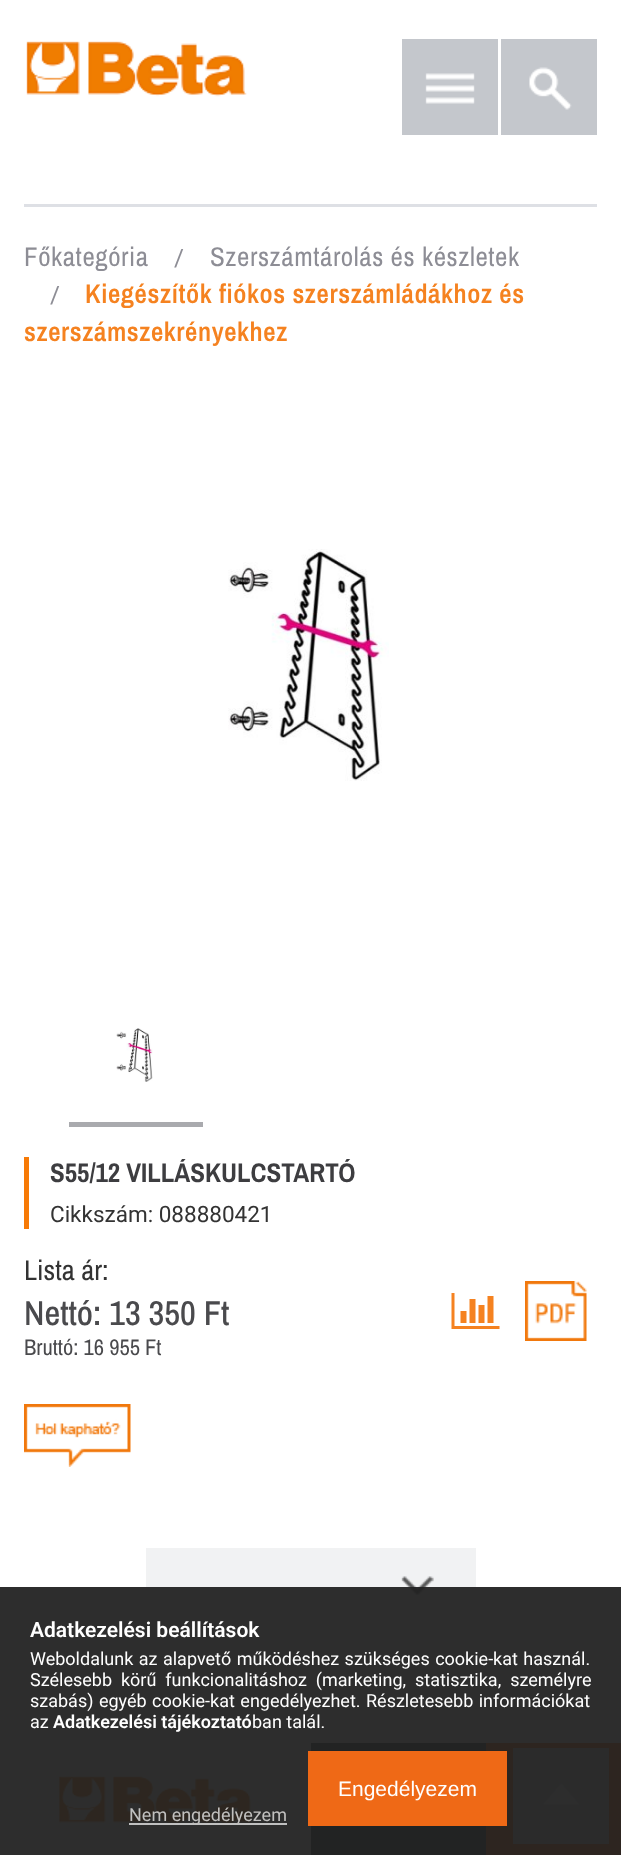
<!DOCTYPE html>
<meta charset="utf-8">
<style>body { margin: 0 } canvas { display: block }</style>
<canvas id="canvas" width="621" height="1855"></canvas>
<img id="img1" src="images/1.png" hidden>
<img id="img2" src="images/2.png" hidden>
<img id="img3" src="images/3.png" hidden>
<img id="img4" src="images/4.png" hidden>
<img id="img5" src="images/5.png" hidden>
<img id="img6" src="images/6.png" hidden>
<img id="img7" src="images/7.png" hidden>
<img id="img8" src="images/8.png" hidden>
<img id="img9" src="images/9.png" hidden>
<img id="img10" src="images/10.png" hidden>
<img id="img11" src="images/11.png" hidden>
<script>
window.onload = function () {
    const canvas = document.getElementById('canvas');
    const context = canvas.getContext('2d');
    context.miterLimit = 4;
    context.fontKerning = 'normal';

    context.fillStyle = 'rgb(255, 255, 255)';
    context.fillRect(0, 0, 621, 1855);
    context.drawImage(document.getElementById('img1'), 26, 41, 221, 56);
    context.fillStyle = 'rgb(196, 199, 204)';
    context.fillRect(402, 39, 96, 96);
    context.drawImage(document.getElementById('img2'), 425, 73, 50, 31);
    context.fillRect(501, 39, 96, 96);
    context.drawImage(document.getElementById('img3'), 529, 67, 43, 43);
    context.fillStyle = 'rgb(222, 224, 229)';
    context.fillRect(24, 204, 573, 3);
    context.drawImage(document.getElementById('img4'), 228, 549, 161, 232);
    context.fillStyle = 'rgb(169, 170, 174)';
    context.fillRect(69, 1122, 134, 5);
    context.drawImage(document.getElementById('img5'), 116, 1028, 37, 54);
    context.fillStyle = 'rgb(247, 122, 6)';
    context.fillRect(24, 1157, 5, 72);
    context.drawImage(document.getElementById('img6'), 451, 1293, 49, 36);
    context.drawImage(document.getElementById('img7'), 525, 1281, 62, 60);
    context.drawImage(document.getElementById('img8'), 24, 1404, 107, 63);
    context.fillStyle = 'rgb(241, 242, 243)';
    context.fillRect(146, 1548, 330, 75);
    context.drawImage(document.getElementById('img9'), 401, 1576, 33, 19);
    context.fillStyle = 'rgb(54, 56, 67)';
    context.fillRect(311, 1743, 175, 112);
    context.drawImage(document.getElementById('img10'), 59, 1776, 194, 48);
    context.fillStyle = 'rgb(247, 105, 11)';
    context.fillRect(486, 1743, 135, 112);
    context.fillStyle = 'rgb(210, 213, 217)';
    context.fillRect(513, 1748, 96, 96);
    context.drawImage(document.getElementById('img11'), 543, 1783, 36, 22);
    context.fillStyle = 'rgba(34, 34, 34, 0.95)';
    context.fillRect(0, 1587, 621, 268);
    context.fillStyle = 'rgb(239, 105, 22)';
    context.fillRect(308, 1751, 199, 75);
    context.fillStyle = 'rgb(192, 192, 192)';
    context.fillRect(129, 1823, 158, 2);
    context.letterSpacing = '0.6px';
    context.font = '27px Archivo Narrow';
    context.fillStyle = 'rgb(141, 141, 149)';
    context.fillText('Főkategória', 24, 266);
    context.letterSpacing = '0px';
    context.font = '24px Roboto';
    context.fillText('/', 174, 266);
    context.letterSpacing = '0.6px';
    context.font = '27px Archivo Narrow';
    context.fillText('Szerszámtárolás és készletek', 210, 266);
    context.letterSpacing = '0px';
    context.font = '24px Roboto';
    context.fillText('/', 50, 303);
    context.letterSpacing = '0.6px';
    context.font = '600 27px Archivo Narrow';
    context.fillStyle = 'rgb(245, 130, 32)';
    context.fillText('Kiegészítők fiókos szerszámládákhoz és', 85, 303);
    context.fillText('szerszámszekrényekhez', 24, 341);
    context.letterSpacing = '0px';
    context.font = 'bold 27px Archivo Narrow';
    context.fillStyle = 'rgb(61, 61, 64)';
    context.fillText('S55/12 VILLÁSKULCSTARTÓ', 50, 1182);
    context.font = '22.5px Roboto';
    context.fillStyle = 'rgb(51, 51, 51)';
    context.fillText('Cikkszám: 088880421', 50, 1222);
    context.font = '28.5px Archivo Narrow';
    context.fillText('Lista ár:', 24, 1280);
    context.font = '500 34.5px Archivo Narrow';
    context.fillStyle = 'rgb(74, 74, 77)';
    context.fillText('Nettó: 13 350 Ft', 24, 1325);
    context.font = '22.5px Archivo Narrow';
    context.fillText('Bruttó: 16 955 Ft', 24, 1355);
    context.font = '600 21px Roboto';
    context.fillStyle = 'rgb(255, 255, 255)';
    context.fillText('Adatkezelési beállítások', 30, 1637);
    context.wordSpacing = '1px';
    context.font = '18px Roboto';
    context.fillText('Weboldalunk az alapvető működéshez szükséges cookie-kat használ.', 30, 1665);
    context.wordSpacing = '4.5px';
    context.fillText('Szélesebb körű funkcionalitáshoz (marketing, statisztika, személyre', 30, 1686);
    context.wordSpacing = '1px';
    context.fillText('szabás) egyéb cookie-kat engedélyezhet. Részletesebb információkat', 30, 1707);
    context.wordSpacing = '0px';
    context.fillText('az', 30, 1728);
    context.font = '600 18px Roboto';
    context.fillText('Adatkezelési tájékoztató', 53, 1728);
    context.font = '18px Roboto';
    context.fillText('ban talál.', 252, 1728);
    context.font = '21px Liberation Sans';
    context.fillText('Engedélyezem', 338, 1796);
    context.font = '18px Roboto';
    context.fillStyle = 'rgb(193, 192, 191)';
    context.fillText('Nem engedélyezem', 129, 1821);
};
</script>
